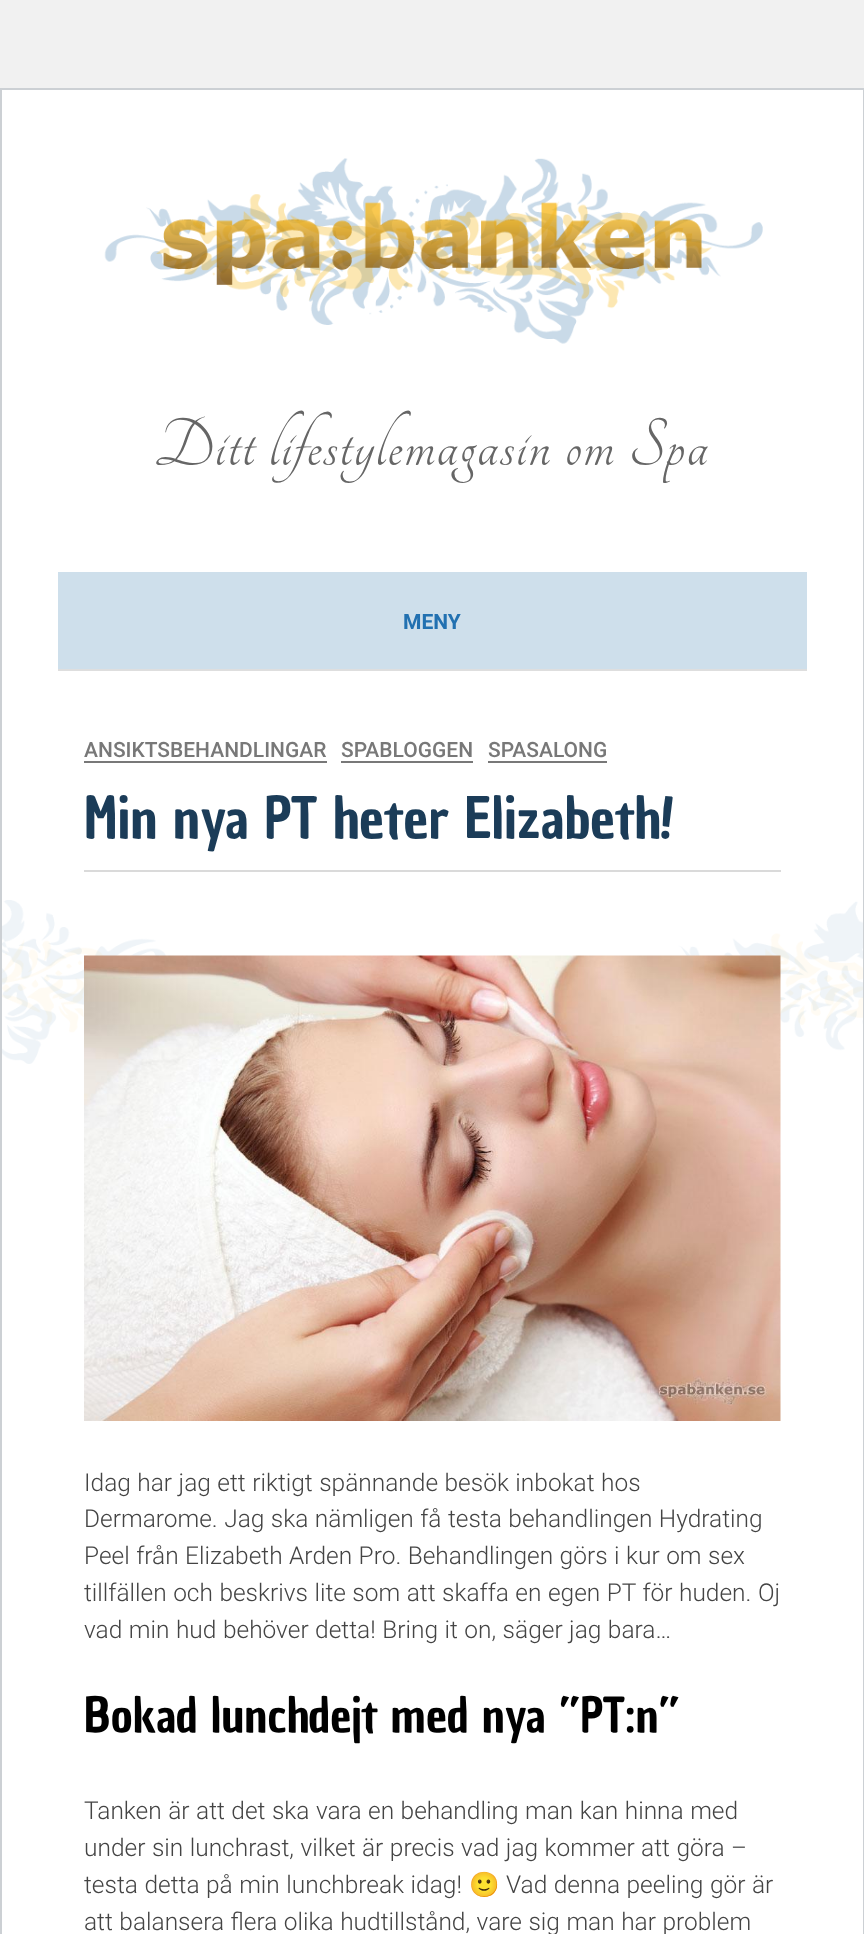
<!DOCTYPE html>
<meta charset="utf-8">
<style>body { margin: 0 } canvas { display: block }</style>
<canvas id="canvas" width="864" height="1934"></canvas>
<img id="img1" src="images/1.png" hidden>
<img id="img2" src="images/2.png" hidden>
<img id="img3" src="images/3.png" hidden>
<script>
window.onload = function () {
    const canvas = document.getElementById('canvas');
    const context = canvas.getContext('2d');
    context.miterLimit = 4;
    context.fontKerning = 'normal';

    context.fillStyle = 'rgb(241, 241, 241)';
    context.fillRect(0, 0, 864, 1934);
    context.fillStyle = 'rgb(255, 255, 255)';
    context.fillRect(2, 90, 861, 1844);
    context.drawImage(document.getElementById('img1'), 2, 900, 861, 164);
    context.strokeStyle = 'rgb(204, 208, 212)';
    context.lineWidth = 2;
    context.strokeRect(1, 89, 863, 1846);
    context.drawImage(document.getElementById('img2'), 104, 158, 659, 186);
    context.fillStyle = 'rgb(206, 223, 235)';
    context.fillRect(58, 572, 749, 97);
    context.fillStyle = 'rgb(222, 222, 222)';
    context.fillRect(58, 669, 749, 2);
    context.fillStyle = 'rgb(120, 120, 120)';
    context.fillRect(84, 761, 243, 2);
    context.fillRect(341, 761, 132, 2);
    context.fillRect(488, 761, 119, 2);
    context.fillStyle = 'rgb(218, 218, 218)';
    context.fillRect(84, 870, 697, 2);
    context.drawImage(document.getElementById('img3'), 84, 955, 697, 466);
    context.letterSpacing = '1.75px';
    context.wordSpacing = '0.5px';
    context.font = '73.5px Tangerine';
    context.fillStyle = 'rgb(102, 102, 102)';
    context.fillText('Ditt lifestylemagasin om Spa', 154, 465);
    context.letterSpacing = '0px';
    context.wordSpacing = '0px';
    context.font = 'bold 21px Roboto';
    context.fillStyle = 'rgb(34, 113, 177)';
    context.fillText('MENY', 403, 629);
    context.font = '500 21px Roboto';
    context.fillStyle = 'rgb(120, 120, 120)';
    context.fillText('ANSIKTSBEHANDLINGAR', 84, 757);
    context.fillText('SPABLOGGEN', 341, 757);
    context.fillText('SPASALONG', 488, 757);
    context.wordSpacing = '0.5px';
    context.font = '56px Chau Philomene One';
    context.fillStyle = 'rgb(27, 60, 88)';
    context.fillText('Min nya PT heter Elizabeth!', 84, 838);
    context.font = '300 24.5px Roboto';
    context.fillStyle = 'rgb(68, 68, 68)';
    context.fillText('Idag har jag ett riktigt spännande besök inbokat hos', 84, 1491);
    context.fillText('Dermarome. Jag ska nämligen få testa behandlingen Hydrating', 84, 1527);
    context.fillText('Peel från Elizabeth Arden Pro. Behandlingen görs i kur om sex', 84, 1564);
    context.fillText('tillfällen och beskrivs lite som att skaffa en egen PT för huden. Oj', 84, 1601);
    context.fillText('vad min hud behöver detta! Bring it on, säger jag bara…', 84, 1638);
    context.font = '47.25px Chau Philomene One';
    context.fillStyle = 'rgb(0, 0, 0)';
    context.fillText('Bokad lunchdejt med nya ”PT:n”', 84, 1732);
    context.font = '300 24.5px Roboto';
    context.fillStyle = 'rgb(68, 68, 68)';
    context.fillText('Tanken är att det ska vara en behandling man kan hinna med', 84, 1819);
    context.fillText('under sin lunchrast, vilket är precis vad jag kommer att göra –', 84, 1856);
    context.fillText('testa detta på min lunchbreak idag!', 84, 1893);
    context.wordSpacing = '0px';
    context.font = '24.5px Noto Color Emoji';
    context.fillText('🙂', 469, 1893);
    context.wordSpacing = '0.5px';
    context.font = '300 24.5px Roboto';
    context.fillText('Vad denna peeling gör är', 506, 1893);
    context.fillText('att balansera flera olika hudtillstånd, vare sig man har problem', 84, 1930);
};
</script>
